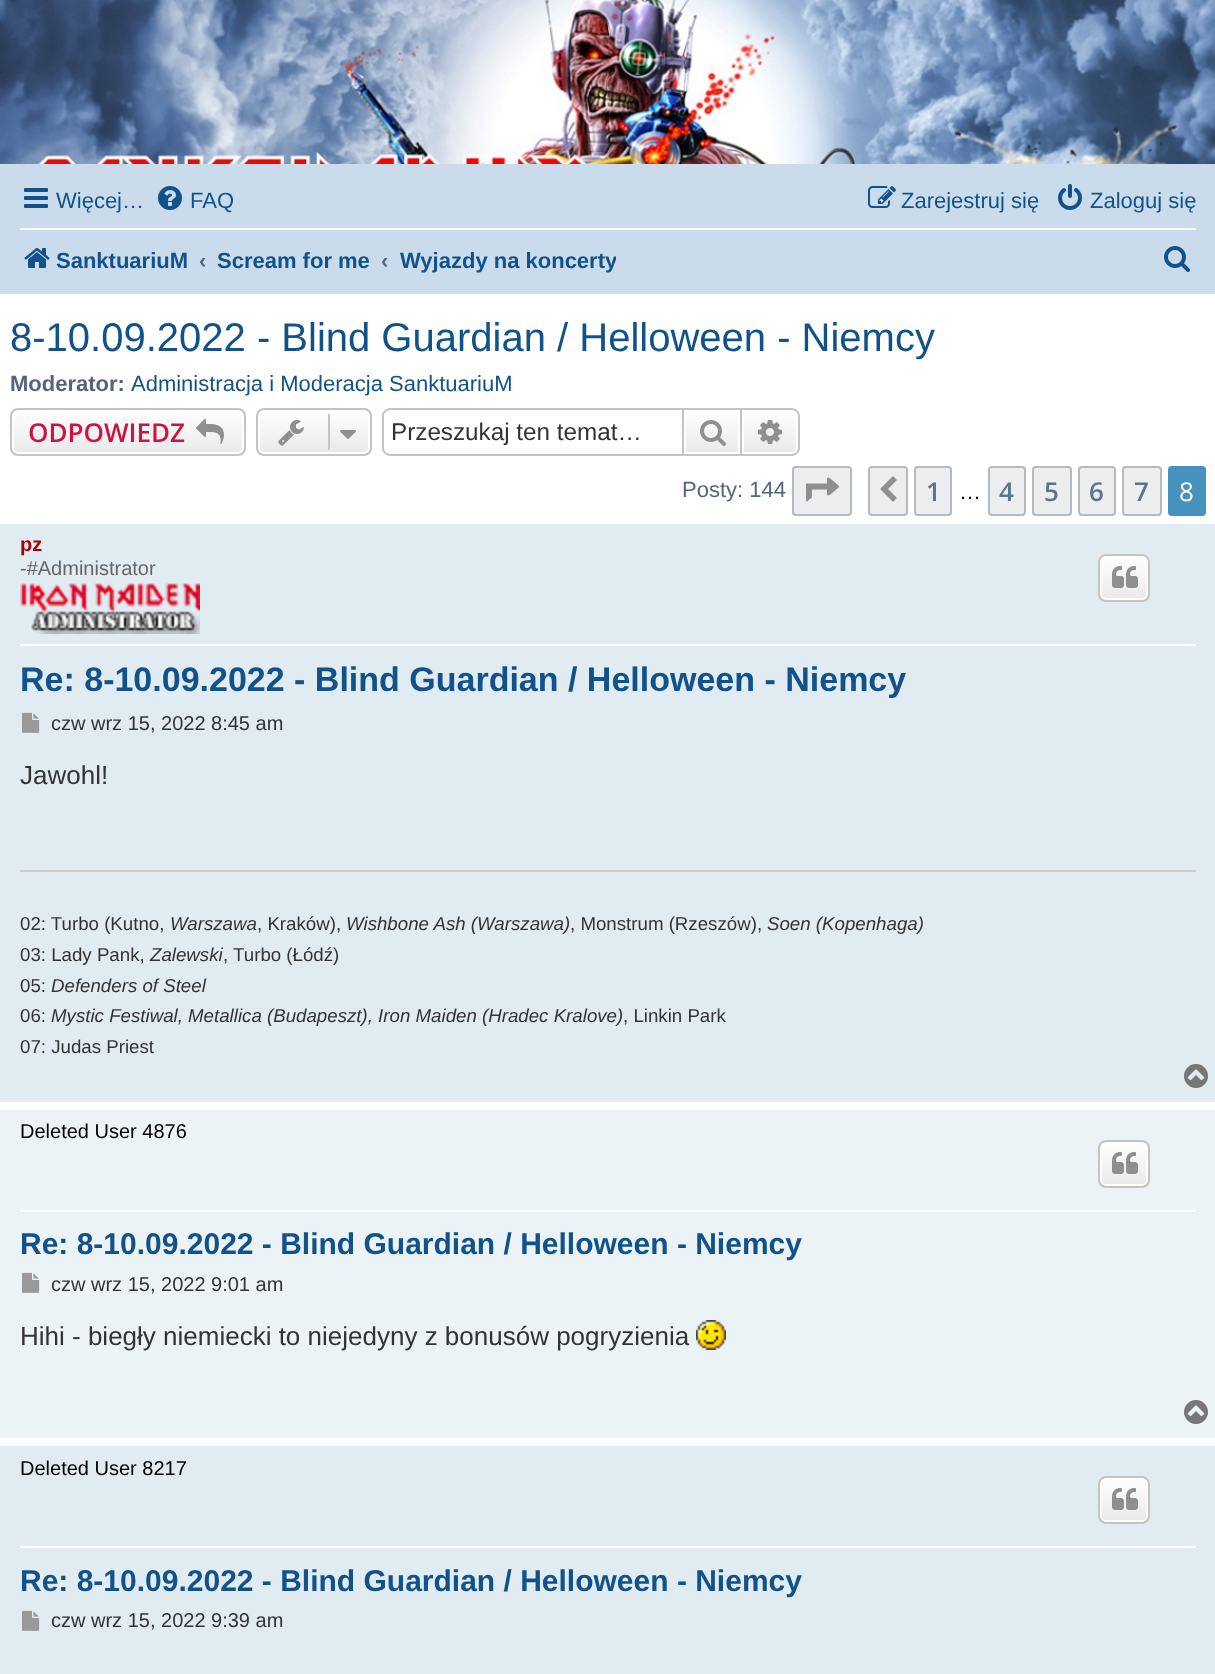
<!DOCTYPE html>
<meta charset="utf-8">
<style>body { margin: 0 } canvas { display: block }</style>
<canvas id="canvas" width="1215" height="1674"></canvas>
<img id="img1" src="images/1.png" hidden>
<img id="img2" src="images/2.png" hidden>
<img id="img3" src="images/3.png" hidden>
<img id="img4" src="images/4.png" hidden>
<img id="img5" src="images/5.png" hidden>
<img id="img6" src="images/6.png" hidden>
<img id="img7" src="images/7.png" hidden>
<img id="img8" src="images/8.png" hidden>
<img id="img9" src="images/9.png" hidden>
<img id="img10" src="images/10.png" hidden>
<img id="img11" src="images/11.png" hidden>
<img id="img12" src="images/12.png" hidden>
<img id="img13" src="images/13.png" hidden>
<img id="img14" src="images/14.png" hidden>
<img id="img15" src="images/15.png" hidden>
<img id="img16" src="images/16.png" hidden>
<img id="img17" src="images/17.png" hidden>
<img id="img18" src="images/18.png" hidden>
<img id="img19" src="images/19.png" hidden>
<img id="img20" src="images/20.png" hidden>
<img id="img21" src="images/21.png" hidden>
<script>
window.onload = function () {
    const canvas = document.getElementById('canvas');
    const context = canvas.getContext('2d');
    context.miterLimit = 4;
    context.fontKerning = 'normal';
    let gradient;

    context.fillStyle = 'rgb(255, 255, 255)';
    context.fillRect(0, 0, 1215, 1674);
    context.drawImage(document.getElementById('img1'), 0, 0, 1215, 164);
    context.fillStyle = 'rgb(202, 220, 235)';
    context.fillRect(0, 164, 1215, 130);
    context.drawImage(document.getElementById('img2'), 24, 188, 24, 20);
    context.drawImage(document.getElementById('img3'), 158, 186, 24, 24);
    context.drawImage(document.getElementById('img4'), 868, 186, 28, 22);
    context.drawImage(document.getElementById('img5'), 1058, 184, 24, 26);
    context.fillStyle = 'rgb(255, 255, 255)';
    context.fillRect(20, 228, 1176, 2);
    context.drawImage(document.getElementById('img6'), 24, 248, 26, 20);
    context.drawImage(document.getElementById('img7'), 1164, 246, 26, 26);
    context.save();
    context.beginPath();
    context.roundRect(10, 408, 236, 48, 8);
    context.clip();
    gradient = context.createLinearGradient(128, 410, 128, 454);
    gradient.addColorStop(0, 'rgb(255, 255, 255)');
    gradient.addColorStop(1, 'rgb(233, 233, 233)');
    context.fillStyle = gradient;
    context.fillRect(10, 410, 236, 44);
    context.restore();
    context.beginPath();
    context.roundRect(13, 411, 230, 42, 5);
    context.strokeStyle = 'rgb(255, 255, 255)';
    context.lineWidth = 2;
    context.stroke();
    context.beginPath();
    context.roundRect(11, 409, 234, 46, 7);
    context.strokeStyle = 'rgb(199, 195, 191)';
    context.stroke();
    context.drawImage(document.getElementById('img8'), 196, 419, 28, 25);
    context.save();
    context.beginPath();
    context.roundRect(256, 408, 116, 48, 8);
    context.clip();
    gradient = context.createLinearGradient(314, 410, 314, 454);
    gradient.addColorStop(0, 'rgb(255, 255, 255)');
    gradient.addColorStop(1, 'rgb(233, 233, 233)');
    context.fillStyle = gradient;
    context.fillRect(256, 410, 116, 44);
    context.restore();
    context.beginPath();
    context.roundRect(259, 411, 110, 42, 5);
    context.strokeStyle = 'rgb(255, 255, 255)';
    context.stroke();
    context.beginPath();
    context.roundRect(257, 409, 114, 46, 7);
    context.strokeStyle = 'rgb(199, 195, 191)';
    context.stroke();
    context.drawImage(document.getElementById('img9'), 278, 420, 26, 26);
    context.fillStyle = 'rgb(199, 195, 191)';
    context.fillRect(328, 414, 2, 36);
    context.drawImage(document.getElementById('img10'), 340, 430, 16, 9);
    context.beginPath();
    context.moveTo(390, 408);
    context.lineTo(682, 408);
    context.lineTo(682, 456);
    context.lineTo(390, 456);
    context.bezierCurveTo(386, 456, 382, 452, 382, 448);
    context.lineTo(382, 416);
    context.bezierCurveTo(382, 412, 386, 408, 390, 408);
    context.closePath();
    context.moveTo(390, 410);
    context.lineTo(682, 410);
    context.lineTo(682, 454);
    context.lineTo(390, 454);
    context.bezierCurveTo(387, 454, 384, 451, 384, 448);
    context.lineTo(384, 416);
    context.bezierCurveTo(384, 413, 387, 410, 390, 410);
    context.closePath();
    context.fill('evenodd');
    gradient = context.createLinearGradient(712, 410, 712, 454);
    gradient.addColorStop(0, 'rgb(255, 255, 255)');
    gradient.addColorStop(1, 'rgb(233, 233, 233)');
    context.fillStyle = gradient;
    context.fillRect(686, 415, 52, 37);
    context.strokeRect(683, 409, 58, 46);
    context.drawImage(document.getElementById('img11'), 700, 420, 26, 26);
    gradient = context.createLinearGradient(770, 410, 770, 454);
    gradient.addColorStop(0, 'rgb(255, 255, 255)');
    gradient.addColorStop(1, 'rgb(233, 233, 233)');
    context.fillStyle = gradient;
    context.beginPath();
    context.roundRect(743, 411, 54, 42, [0, 5, 5, 0]);
    context.fill();
    context.strokeStyle = 'rgb(255, 255, 255)';
    context.stroke();
    context.fillStyle = 'rgb(199, 195, 191)';
    context.beginPath();
    context.moveTo(742, 408);
    context.lineTo(792, 408);
    context.bezierCurveTo(796, 408, 800, 412, 800, 416);
    context.lineTo(800, 448);
    context.bezierCurveTo(800, 452, 796, 456, 792, 456);
    context.lineTo(742, 456);
    context.closePath();
    context.moveTo(742, 410);
    context.lineTo(792, 410);
    context.bezierCurveTo(795, 410, 798, 413, 798, 416);
    context.lineTo(798, 448);
    context.bezierCurveTo(798, 451, 795, 454, 792, 454);
    context.lineTo(742, 454);
    context.closePath();
    context.fill('evenodd');
    context.drawImage(document.getElementById('img12'), 758, 420, 24, 24);
    context.fillStyle = 'rgb(236, 237, 238)';
    context.beginPath();
    context.roundRect(793, 467, 58, 48, 3);
    context.fill();
    context.strokeStyle = 'rgb(180, 186, 192)';
    context.stroke();
    context.drawImage(document.getElementById('img13'), 806, 477, 33, 25);
    context.beginPath();
    context.roundRect(869, 467, 38, 48, 3);
    context.fill();
    context.stroke();
    context.drawImage(document.getElementById('img14'), 880, 476, 17, 26);
    context.beginPath();
    context.roundRect(915, 467, 36, 48, 3);
    context.fill();
    context.stroke();
    context.beginPath();
    context.roundRect(989, 467, 36, 48, 3);
    context.fill();
    context.stroke();
    context.beginPath();
    context.roundRect(1033, 467, 38, 48, 3);
    context.fill();
    context.stroke();
    context.beginPath();
    context.roundRect(1079, 467, 36, 48, 3);
    context.fill();
    context.stroke();
    context.beginPath();
    context.roundRect(1123, 467, 38, 48, 3);
    context.fill();
    context.stroke();
    context.fillStyle = 'rgb(70, 146, 191)';
    context.beginPath();
    context.roundRect(1169, 467, 36, 48, 3);
    context.fill();
    context.strokeStyle = 'rgb(70, 146, 191)';
    context.stroke();
    context.fillStyle = 'rgb(225, 235, 242)';
    context.fillRect(0, 524, 1215, 578);
    context.fillStyle = 'rgb(255, 255, 255)';
    context.fillRect(20, 644, 1176, 2);
    context.drawImage(document.getElementById('img15'), 20, 583, 180, 51);
    context.save();
    context.beginPath();
    context.roundRect(1098, 554, 52, 48, 8);
    context.clip();
    gradient = context.createLinearGradient(1124, 556, 1124, 600);
    gradient.addColorStop(0, 'rgb(255, 255, 255)');
    gradient.addColorStop(1, 'rgb(233, 233, 233)');
    context.fillStyle = gradient;
    context.fillRect(1098, 556, 52, 44);
    context.restore();
    context.beginPath();
    context.roundRect(1101, 557, 46, 42, 5);
    context.strokeStyle = 'rgb(255, 255, 255)';
    context.stroke();
    context.beginPath();
    context.roundRect(1099, 555, 50, 46, 7);
    context.strokeStyle = 'rgb(199, 195, 191)';
    context.stroke();
    context.drawImage(document.getElementById('img16'), 1112, 566, 26, 22);
    context.drawImage(document.getElementById('img17'), 22, 712, 18, 21);
    context.fillStyle = 'rgb(204, 204, 204)';
    context.fillRect(20, 870, 1176, 2);
    context.drawImage(document.getElementById('img18'), 1184, 1064, 24, 24);
    context.fillStyle = 'rgb(236, 243, 247)';
    context.fillRect(0, 1110, 1215, 328);
    context.fillStyle = 'rgb(255, 255, 255)';
    context.fillRect(20, 1210, 1176, 2);
    context.save();
    context.beginPath();
    context.roundRect(1098, 1140, 52, 48, 8);
    context.clip();
    gradient = context.createLinearGradient(1124, 1142, 1124, 1186);
    gradient.addColorStop(0, 'rgb(255, 255, 255)');
    gradient.addColorStop(1, 'rgb(233, 233, 233)');
    context.fillStyle = gradient;
    context.fillRect(1098, 1142, 52, 44);
    context.restore();
    context.beginPath();
    context.roundRect(1101, 1143, 46, 42, 5);
    context.strokeStyle = 'rgb(255, 255, 255)';
    context.stroke();
    context.beginPath();
    context.roundRect(1099, 1141, 50, 46, 7);
    context.strokeStyle = 'rgb(199, 195, 191)';
    context.stroke();
    context.drawImage(document.getElementById('img16'), 1112, 1152, 26, 22);
    context.drawImage(document.getElementById('img19'), 22, 1272, 18, 21);
    context.drawImage(document.getElementById('img20'), 696, 1320, 30, 30);
    context.drawImage(document.getElementById('img21'), 1184, 1400, 24, 24);
    context.fillStyle = 'rgb(225, 235, 242)';
    context.fillRect(0, 1446, 1215, 228);
    context.fillStyle = 'rgb(255, 255, 255)';
    context.fillRect(20, 1546, 1176, 2);
    context.save();
    context.beginPath();
    context.roundRect(1098, 1476, 52, 48, 8);
    context.clip();
    gradient = context.createLinearGradient(1124, 1478, 1124, 1522);
    gradient.addColorStop(0, 'rgb(255, 255, 255)');
    gradient.addColorStop(1, 'rgb(233, 233, 233)');
    context.fillStyle = gradient;
    context.fillRect(1098, 1478, 52, 44);
    context.restore();
    context.beginPath();
    context.roundRect(1101, 1479, 46, 42, 5);
    context.strokeStyle = 'rgb(255, 255, 255)';
    context.stroke();
    context.beginPath();
    context.roundRect(1099, 1477, 50, 46, 7);
    context.strokeStyle = 'rgb(199, 195, 191)';
    context.stroke();
    context.drawImage(document.getElementById('img16'), 1112, 1488, 26, 22);
    context.drawImage(document.getElementById('img17'), 22, 1610, 18, 21);
    context.font = '22px Liberation Sans';
    context.fillStyle = 'rgb(16, 82, 137)';
    context.fillText('Więcej…', 56, 208);
    context.fillText('FAQ', 190, 208);
    context.fillText('Zarejestruj się', 901, 208);
    context.fillText('Zaloguj się', 1090, 208);
    context.font = 'bold 22px Liberation Sans';
    context.fillText('SanktuariuM', 56, 268);
    context.fillStyle = 'rgb(83, 100, 130)';
    context.fillText('‹', 199, 268);
    context.fillStyle = 'rgb(16, 82, 137)';
    context.fillText('Scream for me', 217, 268);
    context.fillStyle = 'rgb(83, 100, 130)';
    context.fillText('‹', 381, 268);
    context.save();
    context.beginPath();
    context.rect(400, 236, 216, 48);
    context.clip();
    context.fillStyle = 'rgb(16, 82, 137)';
    context.fillText('Wyjazdy na koncerty', 400, 268);
    context.restore();
    context.font = '40px Liberation Sans';
    context.fillStyle = 'rgb(16, 82, 137)';
    context.fillText('8-10.09.2022 - Blind Guardian / Helloween - Niemcy', 10, 351);
    context.font = 'bold 22px Liberation Sans';
    context.fillStyle = 'rgb(83, 100, 130)';
    context.fillText('Moderator:', 10, 391);
    context.font = '22px Liberation Sans';
    context.fillStyle = 'rgb(16, 82, 137)';
    context.fillText('Administracja i Moderacja SanktuariuM', 131, 391);
    context.font = '600 26px Open Sans';
    context.fillStyle = 'rgb(211, 17, 65)';
    context.fillText('ODPOWIEDZ', 28, 442);
    context.font = '24.25px Liberation Sans';
    context.fillStyle = 'rgb(51, 51, 51)';
    context.fillText('Przeszukaj ten temat…', 391, 440);
    context.font = '22px Liberation Sans';
    context.fillStyle = 'rgb(83, 100, 130)';
    context.fillText('Posty: 144', 682, 497);
    context.font = '600 26px Open Sans';
    context.fillStyle = 'rgb(92, 117, 140)';
    context.fillText('1', 926, 501);
    context.font = '22px Liberation Sans';
    context.fillStyle = 'rgb(0, 0, 0)';
    context.fillText('…', 959, 499);
    context.font = '600 26px Open Sans';
    context.fillStyle = 'rgb(92, 117, 140)';
    context.fillText('4', 999, 501);
    context.fillText('5', 1044, 501);
    context.fillText('6', 1089, 501);
    context.fillText('7', 1134, 501);
    context.font = '26px Open Sans';
    context.fillStyle = 'rgb(255, 255, 255)';
    context.fillText('8', 1179, 501);
    context.font = 'bold 20px Liberation Sans';
    context.fillStyle = 'rgb(170, 0, 0)';
    context.fillText('pz', 20, 551);
    context.font = '20px Liberation Sans';
    context.fillStyle = 'rgb(102, 102, 102)';
    context.fillText('-#Administrator', 20, 575);
    context.font = 'bold 34px Liberation Sans';
    context.fillStyle = 'rgb(16, 82, 137)';
    context.fillText('Re: 8-10.09.2022 - Blind Guardian / Helloween - Niemcy', 20, 691);
    context.font = '20px Liberation Sans';
    context.fillStyle = 'rgb(51, 51, 51)';
    context.fillText('czw wrz 15, 2022 8:45 am', 51, 730);
    context.font = '26px Liberation Sans';
    context.fillText('Jawohl!', 20, 784);
    context.font = '18.7px Liberation Sans';
    context.fillText('02: Turbo (Kutno,', 20, 930);
    context.font = 'italic 18.7px Liberation Sans';
    context.fillText('Warszawa', 170, 930);
    context.font = '18.7px Liberation Sans';
    context.fillText(', Kraków),', 257, 930);
    context.font = 'italic 18.7px Liberation Sans';
    context.fillText('Wishbone Ash (Warszawa)', 346, 930);
    context.font = '18.7px Liberation Sans';
    context.fillText(', Monstrum (Rzeszów),', 570, 930);
    context.font = 'italic 18.7px Liberation Sans';
    context.fillText('Soen (Kopenhaga)', 767, 930);
    context.font = '18.7px Liberation Sans';
    context.fillText('03: Lady Pank,', 20, 961);
    context.font = 'italic 18.7px Liberation Sans';
    context.fillText('Zalewski', 150, 961);
    context.font = '18.7px Liberation Sans';
    context.fillText(', Turbo (Łódź)', 223, 961);
    context.fillText('05:', 20, 992);
    context.font = 'italic 18.7px Liberation Sans';
    context.fillText('Defenders of Steel', 51, 992);
    context.font = '18.7px Liberation Sans';
    context.fillText('06:', 20, 1022);
    context.font = 'italic 18.7px Liberation Sans';
    context.fillText('Mystic Festiwal, Metallica (Budapeszt), Iron Maiden (Hradec Kralove)', 51, 1022);
    context.font = '18.7px Liberation Sans';
    context.fillText(', Linkin Park', 623, 1022);
    context.fillText('07: Judas Priest', 20, 1053);
    context.font = '20px Liberation Sans';
    context.fillStyle = 'rgb(0, 0, 0)';
    context.fillText('Deleted User 4876', 20, 1138);
    context.font = 'bold 30px Liberation Sans';
    context.fillStyle = 'rgb(16, 82, 137)';
    context.fillText('Re: 8-10.09.2022 - Blind Guardian / Helloween - Niemcy', 20, 1254);
    context.font = '20px Liberation Sans';
    context.fillStyle = 'rgb(51, 51, 51)';
    context.fillText('czw wrz 15, 2022 9:01 am', 51, 1291);
    context.font = '26px Liberation Sans';
    context.fillText('Hihi - biegły niemiecki to niejedyny z bonusów pogryzienia', 20, 1345);
    context.font = '20px Liberation Sans';
    context.fillStyle = 'rgb(0, 0, 0)';
    context.fillText('Deleted User 8217', 20, 1475);
    context.font = 'bold 30px Liberation Sans';
    context.fillStyle = 'rgb(16, 82, 137)';
    context.fillText('Re: 8-10.09.2022 - Blind Guardian / Helloween - Niemcy', 20, 1591);
    context.font = '20px Liberation Sans';
    context.fillStyle = 'rgb(51, 51, 51)';
    context.fillText('czw wrz 15, 2022 9:39 am', 51, 1627);
};
</script>
